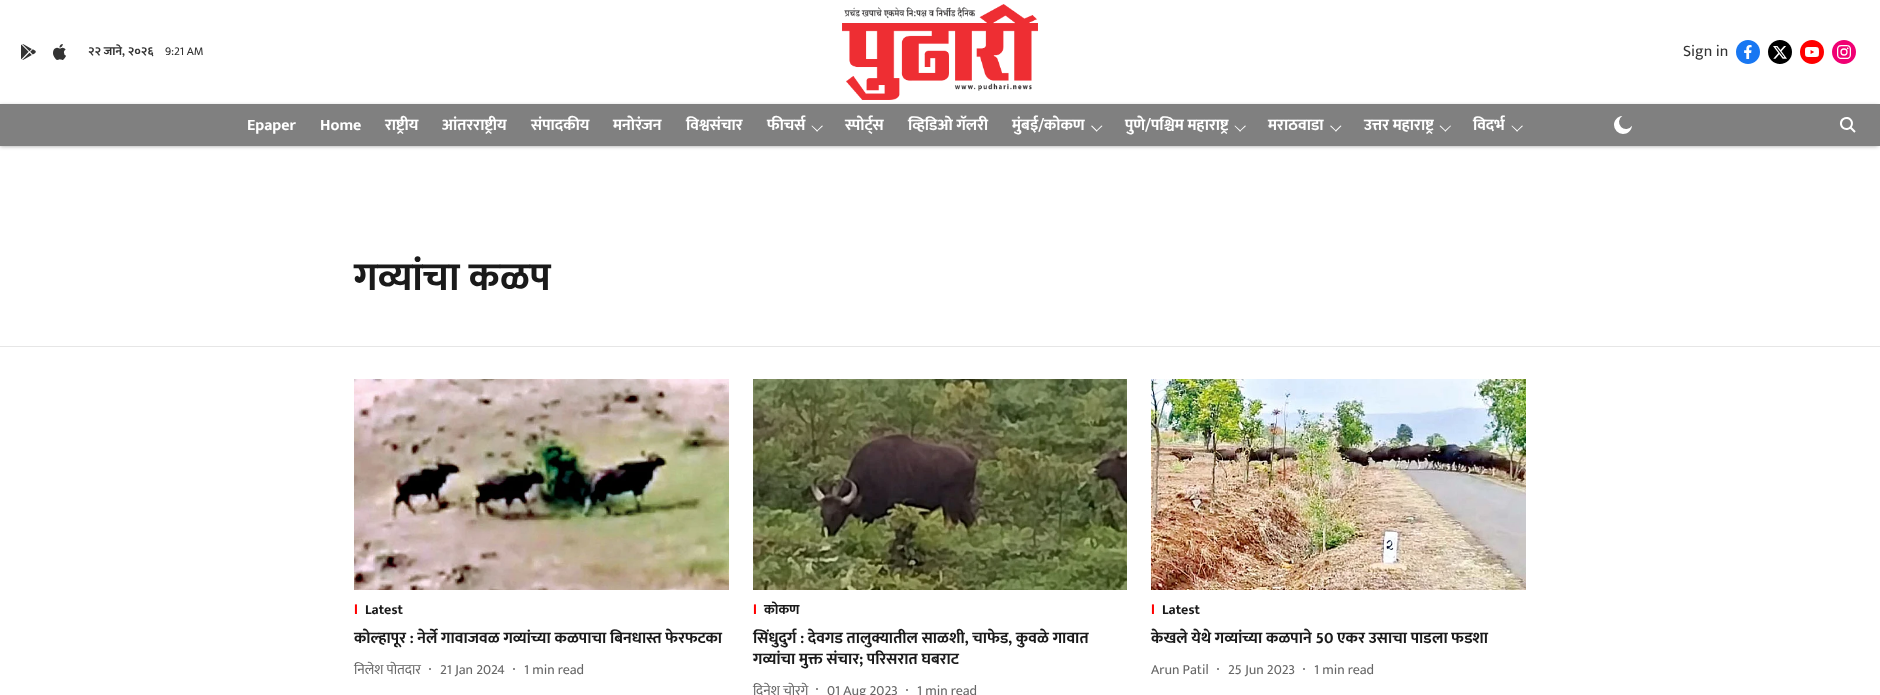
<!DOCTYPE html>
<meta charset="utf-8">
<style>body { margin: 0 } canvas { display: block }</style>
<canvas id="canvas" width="1880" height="695"></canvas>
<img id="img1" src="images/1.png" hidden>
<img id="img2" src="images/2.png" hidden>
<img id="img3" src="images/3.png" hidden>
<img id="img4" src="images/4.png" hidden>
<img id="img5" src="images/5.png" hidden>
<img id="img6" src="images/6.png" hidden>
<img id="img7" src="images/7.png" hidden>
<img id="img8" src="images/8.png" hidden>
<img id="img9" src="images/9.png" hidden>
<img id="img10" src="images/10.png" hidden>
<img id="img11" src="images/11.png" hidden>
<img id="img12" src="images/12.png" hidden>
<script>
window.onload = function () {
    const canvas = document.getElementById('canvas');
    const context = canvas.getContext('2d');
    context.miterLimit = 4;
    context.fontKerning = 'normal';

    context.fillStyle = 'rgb(255, 255, 255)';
    context.fillRect(0, 0, 1880, 695);
    context.drawImage(document.getElementById('img1'), 21, 44, 15, 16);
    context.drawImage(document.getElementById('img2'), 53, 44, 13, 16);
    context.drawImage(document.getElementById('img3'), 842, 4, 196, 96);
    context.drawImage(document.getElementById('img4'), 1736, 40, 24, 24);
    context.drawImage(document.getElementById('img5'), 1768, 40, 24, 24);
    context.drawImage(document.getElementById('img6'), 1800, 40, 24, 24);
    context.drawImage(document.getElementById('img7'), 1832, 40, 24, 24);
    context.fillStyle = 'rgba(0, 0, 0, 0.39)';
    context.filter = 'blur(2px)';
    context.beginPath();
    context.rect(0, 106, 1878, 40);
    context.fill();
    context.filter = 'none';
    context.fillStyle = 'rgb(128, 128, 128)';
    context.fillRect(0, 104, 1880, 42);
    context.fillStyle = 'rgb(255, 255, 255)';
    context.beginPath();
    context.moveTo(822, 125.5);
    context.lineTo(823, 126);
    context.lineTo(817, 131.5);
    context.lineTo(816.5, 131);
    context.closePath();
    context.fill();
    context.beginPath();
    context.moveTo(812, 125.5);
    context.lineTo(818, 131);
    context.lineTo(817, 131.5);
    context.lineTo(811.5, 126);
    context.closePath();
    context.fill();
    context.beginPath();
    context.moveTo(1101.5, 125.5);
    context.lineTo(1102.5, 126);
    context.lineTo(1096.5, 131.5);
    context.lineTo(1096, 131);
    context.closePath();
    context.fill();
    context.beginPath();
    context.moveTo(1092, 125.5);
    context.lineTo(1097.5, 131);
    context.lineTo(1096.5, 131.5);
    context.lineTo(1091, 126);
    context.closePath();
    context.fill();
    context.beginPath();
    context.moveTo(1245, 125.5);
    context.lineTo(1246, 126);
    context.lineTo(1240, 131.5);
    context.lineTo(1239.5, 131);
    context.closePath();
    context.fill();
    context.beginPath();
    context.moveTo(1235, 125.5);
    context.lineTo(1241, 131);
    context.lineTo(1240, 131.5);
    context.lineTo(1234.5, 126);
    context.closePath();
    context.fill();
    context.beginPath();
    context.moveTo(1340.5, 125.5);
    context.lineTo(1341.5, 126);
    context.lineTo(1336, 131.5);
    context.lineTo(1335, 131);
    context.closePath();
    context.fill();
    context.beginPath();
    context.moveTo(1331, 125.5);
    context.lineTo(1336.5, 131);
    context.lineTo(1336, 131.5);
    context.lineTo(1330, 126);
    context.closePath();
    context.fill();
    context.beginPath();
    context.moveTo(1450.5, 125.5);
    context.lineTo(1451, 126);
    context.lineTo(1445.5, 131.5);
    context.lineTo(1444.5, 131);
    context.closePath();
    context.fill();
    context.beginPath();
    context.moveTo(1440.5, 125.5);
    context.lineTo(1446, 131);
    context.lineTo(1445.5, 131.5);
    context.lineTo(1439.5, 126);
    context.closePath();
    context.fill();
    context.beginPath();
    context.moveTo(1522, 125.5);
    context.lineTo(1523, 126);
    context.lineTo(1517, 131.5);
    context.lineTo(1516.5, 131);
    context.closePath();
    context.fill();
    context.beginPath();
    context.moveTo(1512, 125.5);
    context.lineTo(1518, 131);
    context.lineTo(1517, 131.5);
    context.lineTo(1511.5, 126);
    context.closePath();
    context.fill();
    context.drawImage(document.getElementById('img8'), 1614, 116, 18, 18);
    context.drawImage(document.getElementById('img9'), 1839, 117, 17, 16);
    context.fillStyle = 'rgb(230, 230, 230)';
    context.fillRect(0, 346, 1880, 1);
    context.drawImage(document.getElementById('img10'), 354, 379, 375, 211);
    context.fillStyle = 'rgb(102, 102, 102)';
    context.beginPath();
    context.arc(430, 669, 1, 0, 2 * Math.PI);
    context.fill();
    context.beginPath();
    context.arc(514, 669, 1, 0, 2 * Math.PI);
    context.fill();
    context.drawImage(document.getElementById('img11'), 753, 379, 374, 211);
    context.beginPath();
    context.arc(817, 689, 1, 0, 2 * Math.PI);
    context.fill();
    context.beginPath();
    context.arc(907, 690, 1, 0, 2 * Math.PI);
    context.fill();
    context.drawImage(document.getElementById('img12'), 1151, 379, 375, 211);
    context.beginPath();
    context.arc(1218, 669, 1, 0, 2 * Math.PI);
    context.fill();
    context.beginPath();
    context.arc(1304, 669, 1, 0, 2 * Math.PI);
    context.fill();
    context.font = 'bold 12px Mukta';
    context.fillStyle = 'rgb(51, 51, 51)';
    context.fillText('२२ जाने, २०२६', 88, 55);
    context.font = '12px Mukta';
    context.fillText('9:21 AM', 165, 55);
    context.font = '16px Mukta';
    context.fillText('Sign in', 1683, 56);
    context.font = 'bold 16px Mukta';
    context.fillStyle = 'rgb(255, 255, 255)';
    context.fillText('Epaper', 247, 130);
    context.fillText('Home', 320, 130);
    context.fillText('राष्ट्रीय', 385, 130);
    context.fillText('आंतरराष्ट्रीय', 442, 130);
    context.fillText('संपादकीय', 531, 130);
    context.fillText('मनोरंजन', 613, 130);
    context.fillText('विश्वसंचार', 686, 130);
    context.fillText('फीचर्स', 767, 130);
    context.fillText('स्पोर्ट्स', 845, 130);
    context.fillText('व्हिडिओ गॅलरी', 908, 130);
    context.fillText('मुंबई/कोकण', 1012, 130);
    context.fillText('पुणे/पश्चिम महाराष्ट्र', 1125, 130);
    context.fillText('मराठवाडा', 1268, 130);
    context.fillText('उत्तर महाराष्ट्र', 1364, 130);
    context.fillText('विदर्भ', 1473, 130);
    context.font = 'bold 40px Mukta';
    context.fillStyle = 'rgb(26, 26, 26)';
    context.fillText('गव्यांचा कळप', 354, 290);
    context.font = 'bold 14px Liberation Sans';
    context.fillStyle = 'rgb(255, 0, 0)';
    context.fillText('I', 354, 614);
    context.font = 'bold 14px Mukta';
    context.fillStyle = 'rgb(26, 26, 26)';
    context.fillText('Latest', 365, 614);
    context.font = 'bold 16px Mukta';
    context.fillText('कोल्‍हापूर : नेर्ले गावाजवळ गव्यांच्या कळपाचा बिनधास्त फेरफटका', 354, 643);
    context.font = '14px Mukta';
    context.fillStyle = 'rgb(102, 102, 102)';
    context.fillText('निलेश पोतदार', 354, 674);
    context.fillText('21 Jan 2024', 440, 674);
    context.fillText('1 min read', 524, 674);
    context.font = 'bold 14px Liberation Sans';
    context.fillStyle = 'rgb(255, 0, 0)';
    context.fillText('I', 753, 614);
    context.font = 'bold 14px Mukta';
    context.fillStyle = 'rgb(26, 26, 26)';
    context.fillText('कोकण', 764, 614);
    context.font = 'bold 16px Mukta';
    context.fillText('सिंधुदुर्ग : देवगड तालुक्यातील साळशी, चाफेड, कुवळे गावात', 753, 643);
    context.fillText('गव्यांचा मुक्त संचार; परिसरात घबराट', 753, 664);
    context.font = '14px Mukta';
    context.fillStyle = 'rgb(102, 102, 102)';
    context.fillText('दिनेश चोरगे', 753, 695);
    context.fillText('01 Aug 2023', 827, 695);
    context.fillText('1 min read', 917, 695);
    context.save();
    context.beginPath();
    context.rect(1151, 598, 3, 23);
    context.clip();
    context.font = 'bold 14px Liberation Sans';
    context.fillStyle = 'rgb(255, 0, 0)';
    context.fillText('I', 1151, 614);
    context.restore();
    context.font = 'bold 14px Mukta';
    context.fillStyle = 'rgb(26, 26, 26)';
    context.fillText('Latest', 1162, 614);
    context.font = 'bold 16px Mukta';
    context.fillText('केखले येथे गव्यांच्या कळपाने 50 एकर उसाचा पाडला फडशा', 1151, 643);
    context.font = '14px Mukta';
    context.fillStyle = 'rgb(102, 102, 102)';
    context.fillText('Arun Patil', 1151, 674);
    context.fillText('25 Jun 2023', 1228, 674);
    context.fillText('1 min read', 1314, 674);
};
</script>
